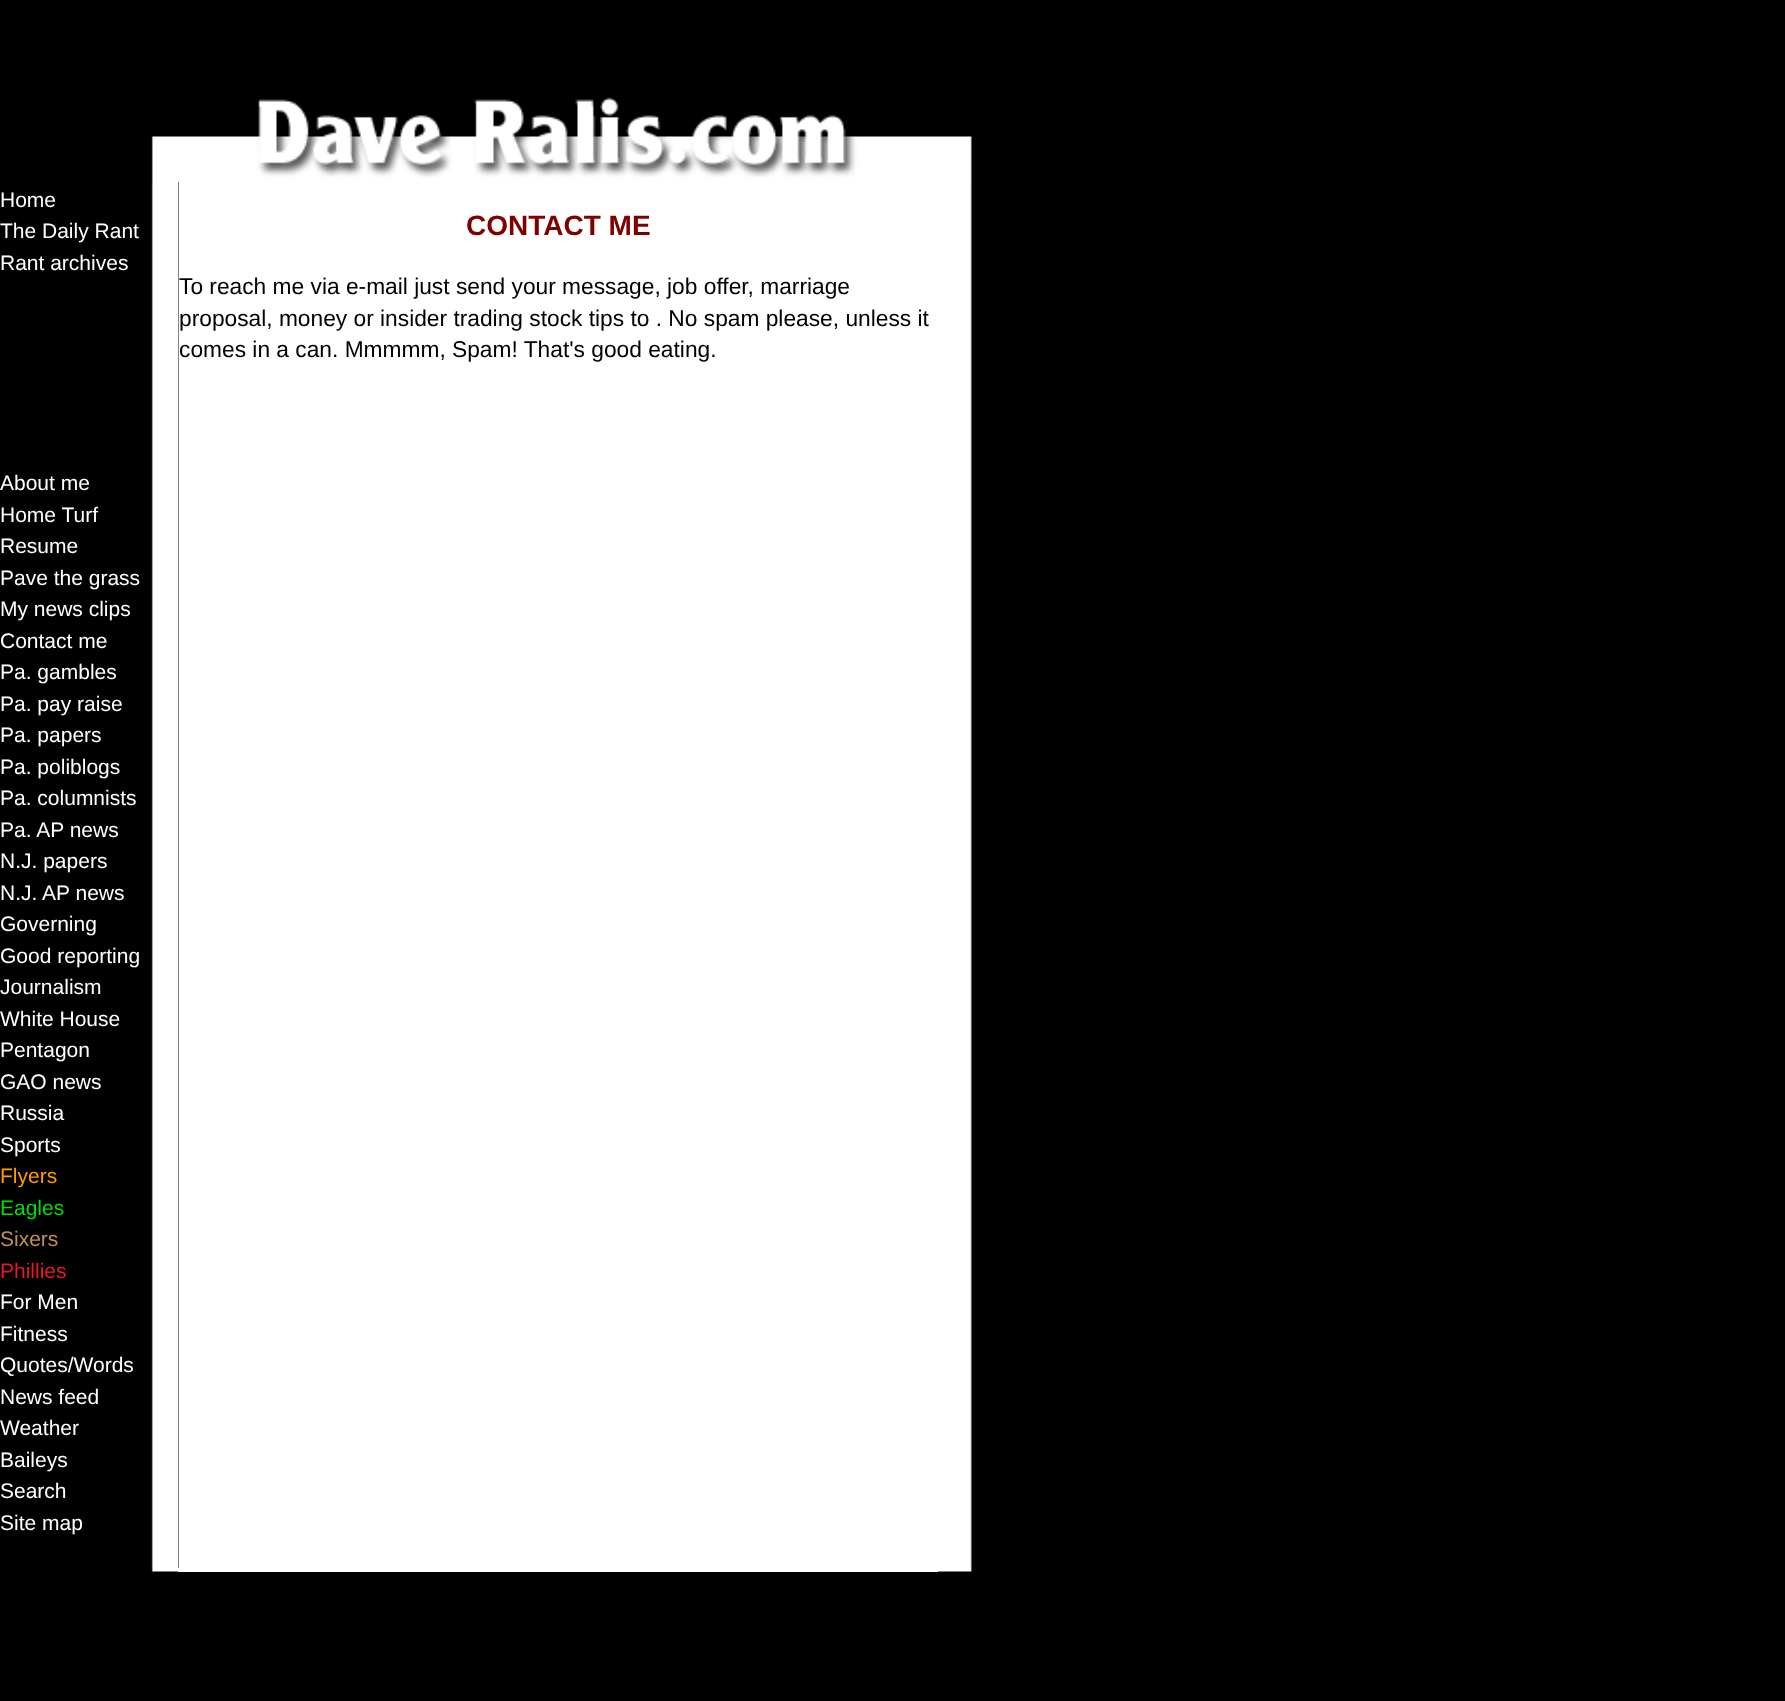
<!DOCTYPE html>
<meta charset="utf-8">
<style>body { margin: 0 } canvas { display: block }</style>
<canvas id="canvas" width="1785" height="1701"></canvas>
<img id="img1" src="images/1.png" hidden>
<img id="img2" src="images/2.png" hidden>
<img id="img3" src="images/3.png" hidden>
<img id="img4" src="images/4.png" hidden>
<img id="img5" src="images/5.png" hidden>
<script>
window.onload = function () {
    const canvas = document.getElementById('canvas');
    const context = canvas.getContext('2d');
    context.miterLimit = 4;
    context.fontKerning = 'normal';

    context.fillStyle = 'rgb(0, 0, 0)';
    context.fillRect(0, 0, 1785, 1701);
    context.drawImage(document.getElementById('img1'), 151, 97, 821, 85);
    context.drawImage(document.getElementById('img2'), 151, 182, 28, 1386);
    context.fillStyle = 'rgb(255, 255, 255)';
    context.fillRect(179, 182, 759, 1386);
    context.drawImage(document.getElementById('img3'), 938, 182, 34, 1386);
    context.drawImage(document.getElementById('img4'), 151, 1568, 27, 4);
    context.fillRect(178, 1568, 760, 4);
    context.drawImage(document.getElementById('img5'), 938, 1568, 34, 4);
    context.font = '21px Liberation Sans';
    context.fillText('Home', 0, 207);
    context.fillText('The Daily Rant', 0, 238);
    context.fillText('Rant archives', 0, 270);
    context.fillText('About me', 0, 490);
    context.fillText('Home Turf', 0, 522);
    context.fillText('Resume', 0, 553);
    context.fillText('Pave the grass', 0, 585);
    context.fillText('My news clips', 0, 616);
    context.fillText('Contact me', 0, 648);
    context.fillText('Pa. gambles', 0, 679);
    context.fillText('Pa. pay raise', 0, 711);
    context.fillText('Pa. papers', 0, 742);
    context.fillText('Pa. poliblogs', 0, 774);
    context.fillText('Pa. columnists', 0, 805);
    context.fillText('Pa. AP news', 0, 837);
    context.fillText('N.J. papers', 0, 868);
    context.fillText('N.J. AP news', 0, 900);
    context.fillText('Governing', 0, 931);
    context.fillText('Good reporting', 0, 963);
    context.fillText('Journalism', 0, 994);
    context.fillText('White House', 0, 1026);
    context.fillText('Pentagon', 0, 1057);
    context.fillText('GAO news', 0, 1089);
    context.fillText('Russia', 0, 1120);
    context.fillText('Sports', 0, 1152);
    context.fillStyle = 'rgb(255, 156, 0)';
    context.fillText('Flyers', 0, 1183);
    context.fillStyle = 'rgb(0, 221, 0)';
    context.fillText('Eagles', 0, 1215);
    context.fillStyle = 'rgb(193, 145, 83)';
    context.fillText('Sixers', 0, 1246);
    context.fillStyle = 'rgb(232, 24, 40)';
    context.fillText('Phillies', 0, 1278);
    context.fillStyle = 'rgb(255, 255, 255)';
    context.fillText('For Men', 0, 1309);
    context.fillText('Fitness', 0, 1341);
    context.fillText('Quotes/Words', 0, 1372);
    context.fillText('News feed', 0, 1404);
    context.fillText('Weather', 0, 1435);
    context.fillText('Baileys', 0, 1467);
    context.fillText('Search', 0, 1498);
    context.fillText('Site map', 0, 1530);
    context.font = 'bold 28px Liberation Sans';
    context.fillStyle = 'rgb(128, 0, 0)';
    context.fillText('CONTACT ME', 466, 235);
    context.font = '22.75px Liberation Sans';
    context.fillStyle = 'rgb(0, 0, 0)';
    context.fillText('To reach me via e-mail just send your message, job offer, marriage', 179, 294);
    context.fillText('proposal, money or insider trading stock tips to . No spam please, unless it', 179, 326);
    context.fillText('comes in a can. Mmmmm, Spam! That\'s good eating.', 179, 357);
};
</script>
